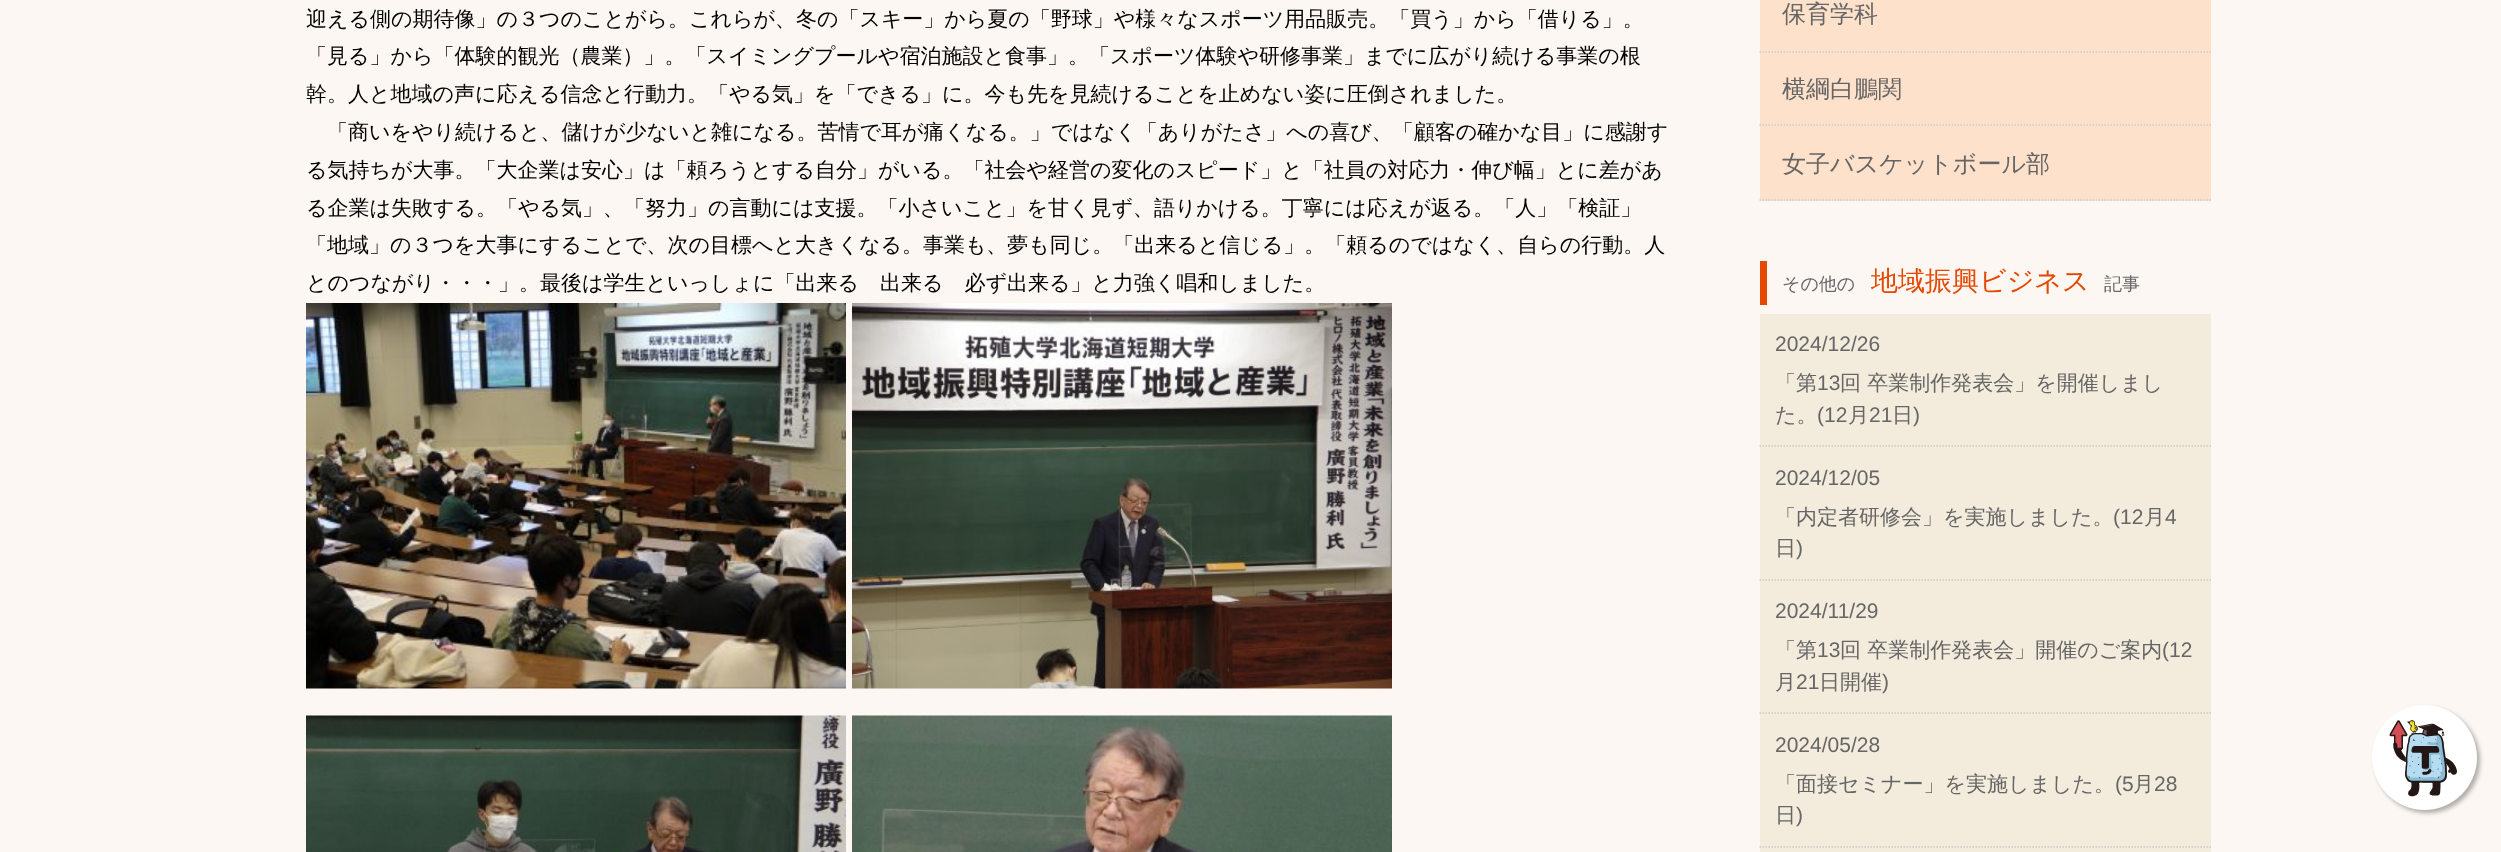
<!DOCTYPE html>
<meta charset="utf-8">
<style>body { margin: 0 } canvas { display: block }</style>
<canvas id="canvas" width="2501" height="852"></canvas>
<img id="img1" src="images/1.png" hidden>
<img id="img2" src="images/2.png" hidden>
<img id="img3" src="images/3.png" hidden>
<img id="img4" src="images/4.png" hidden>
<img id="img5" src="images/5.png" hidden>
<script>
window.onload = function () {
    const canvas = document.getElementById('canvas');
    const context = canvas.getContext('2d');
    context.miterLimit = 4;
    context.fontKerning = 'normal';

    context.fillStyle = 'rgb(252, 247, 242)';
    context.fillRect(0, 0, 2501, 852);
    context.drawImage(document.getElementById('img1'), 306, 303, 540, 386);
    context.drawImage(document.getElementById('img2'), 852, 303, 540, 386);
    context.drawImage(document.getElementById('img3'), 306, 715, 540, 137);
    context.drawImage(document.getElementById('img4'), 852, 715, 540, 137);
    context.fillStyle = 'rgb(254, 225, 202)';
    context.fillRect(1760, 0, 451, 201);
    context.beginPath();
    context.moveTo(1759.5, 52);
    context.lineTo(2211, 52);
    context.strokeStyle = 'rgb(204, 204, 204)';
    context.lineWidth = 1.5;
    context.setLineDash([1.5, 1.5]);
    context.stroke();
    context.beginPath();
    context.moveTo(1759.5, 125);
    context.lineTo(2211, 125);
    context.stroke();
    context.beginPath();
    context.moveTo(1759.5, 200);
    context.lineTo(2211, 200);
    context.stroke();
    context.fillStyle = 'rgb(229, 72, 0)';
    context.fillRect(1760, 261, 7, 44);
    context.fillStyle = 'rgb(243, 235, 220)';
    context.fillRect(1760, 314, 451, 538);
    context.beginPath();
    context.moveTo(1759.5, 446);
    context.lineTo(2211, 446);
    context.stroke();
    context.beginPath();
    context.moveTo(1759.5, 580);
    context.lineTo(2211, 580);
    context.stroke();
    context.beginPath();
    context.moveTo(1759.5, 713);
    context.lineTo(2211, 713);
    context.stroke();
    context.beginPath();
    context.moveTo(1759.5, 847);
    context.lineTo(2211, 847);
    context.stroke();
    context.fillStyle = 'rgba(0, 0, 0, 0.3)';
    context.filter = 'blur(2px)';
    context.beginPath();
    context.roundRect(2375, 708, 105, 105, 52.5);
    context.fill();
    context.filter = 'none';
    context.fillStyle = 'rgb(255, 255, 255)';
    context.beginPath();
    context.arc(2424.5, 757.5, 52.5, 0, 2 * Math.PI);
    context.fill();
    context.drawImage(document.getElementById('img5'), 2389, 720, 68, 77);
    context.font = '500 21px WenQuanYi Zen Hei';
    context.fillStyle = 'rgb(0, 0, 0)';
    context.fillText('迎える側の期待像」の３つのことがら。これらが、冬の「スキー」から夏の「野球」や様々なスポーツ用品販売。「買う」から「借りる」。', 306, 26);
    context.fillText('「見る」から「体験的観光（農業）」。「スイミングプールや宿泊施設と食事」。「スポーツ体験や研修事業」までに広がり続ける事業の根', 306, 63);
    context.fillText('幹。人と地域の声に応える信念と行動力。「やる気」を「できる」に。今も先を見続けることを止めない姿に圧倒されました。', 306, 101);
    context.fillText('「商いをやり続けると、儲けが少ないと雑になる。苦情で耳が痛くなる。」ではなく「ありがたさ」への喜び、「顧客の確かな目」に感謝す', 327, 139);
    context.fillText('る気持ちが大事。「大企業は安心」は「頼ろうとする自分」がいる。「社会や経営の変化のスピード」と「社員の対応力・伸び幅」とに差があ', 306, 177);
    context.fillText('る企業は失敗する。「やる気」、「努力」の言動には支援。「小さいこと」を甘く見ず、語りかける。丁寧には応えが返る。「人」「検証」', 306, 215);
    context.fillText('「地域」の３つを大事にすることで、次の目標へと大きくなる。事業も、夢も同じ。「出来ると信じる」。「頼るのではなく、自らの行動。人', 306, 252);
    context.fillText('とのつながり・・・」。最後は学生といっしょに「出来る　出来る　必ず出来る」と力強く唱和しました。', 306, 290);
    context.font = '500 24px WenQuanYi Zen Hei';
    context.fillStyle = 'rgb(102, 102, 102)';
    context.fillText('保育学科', 1782, 22);
    context.fillText('横綱白鵬関', 1782, 97);
    context.fillText('女子バスケットボール部', 1782, 172);
    context.font = '500 18px WenQuanYi Zen Hei';
    context.fillText('その他の', 1782, 290);
    context.font = '500 27px WenQuanYi Zen Hei';
    context.fillStyle = 'rgb(229, 72, 0)';
    context.fillText('地域振興ビジネス', 1871, 290);
    context.font = '500 18px WenQuanYi Zen Hei';
    context.fillStyle = 'rgb(102, 102, 102)';
    context.fillText('記事', 2104, 290);
    context.font = '21px Liberation Sans';
    context.fillText('2024/12/26', 1775, 351);
    context.font = '500 21px WenQuanYi Zen Hei';
    context.fillText('「第', 1775, 390);
    context.font = '21px Liberation Sans';
    context.fillText('13', 1817, 390);
    context.font = '500 21px WenQuanYi Zen Hei';
    context.fillText('回 卒業制作発表会」を開催しまし', 1840, 390);
    context.fillText('た。', 1775, 422);
    context.font = '21px Liberation Sans';
    context.fillText('(12', 1817, 422);
    context.font = '500 21px WenQuanYi Zen Hei';
    context.fillText('月', 1848, 422);
    context.font = '21px Liberation Sans';
    context.fillText('21', 1869, 422);
    context.font = '500 21px WenQuanYi Zen Hei';
    context.fillText('日', 1892, 422);
    context.font = '21px Liberation Sans';
    context.fillText(')', 1913, 422);
    context.fillText('2024/12/05', 1775, 485);
    context.font = '500 21px WenQuanYi Zen Hei';
    context.fillText('「内定者研修会」を実施しました。', 1775, 524);
    context.font = '21px Liberation Sans';
    context.fillText('(12', 2113, 524);
    context.font = '500 21px WenQuanYi Zen Hei';
    context.fillText('月', 2144, 524);
    context.font = '21px Liberation Sans';
    context.fillText('4', 2165, 524);
    context.font = '500 21px WenQuanYi Zen Hei';
    context.fillText('日', 1775, 555);
    context.font = '21px Liberation Sans';
    context.fillText(')', 1796, 555);
    context.fillText('2024/11/29', 1775, 618);
    context.font = '500 21px WenQuanYi Zen Hei';
    context.fillText('「第', 1775, 657);
    context.font = '21px Liberation Sans';
    context.fillText('13', 1817, 657);
    context.font = '500 21px WenQuanYi Zen Hei';
    context.fillText('回 卒業制作発表会」開催のご案内', 1840, 657);
    context.font = '21px Liberation Sans';
    context.fillText('(12', 2162, 657);
    context.font = '500 21px WenQuanYi Zen Hei';
    context.fillText('月', 1775, 689);
    context.font = '21px Liberation Sans';
    context.fillText('21', 1796, 689);
    context.font = '500 21px WenQuanYi Zen Hei';
    context.fillText('日開催', 1819, 689);
    context.font = '21px Liberation Sans';
    context.fillText(')', 1882, 689);
    context.fillText('2024/05/28', 1775, 752);
    context.font = '500 21px WenQuanYi Zen Hei';
    context.fillText('「面接セミナー」を実施しました。', 1775, 791);
    context.font = '21px Liberation Sans';
    context.fillText('(5', 2115, 791);
    context.font = '500 21px WenQuanYi Zen Hei';
    context.fillText('月', 2133, 791);
    context.font = '21px Liberation Sans';
    context.fillText('28', 2154, 791);
    context.font = '500 21px WenQuanYi Zen Hei';
    context.fillText('日', 1775, 822);
    context.font = '21px Liberation Sans';
    context.fillText(')', 1796, 822);
};
</script>
